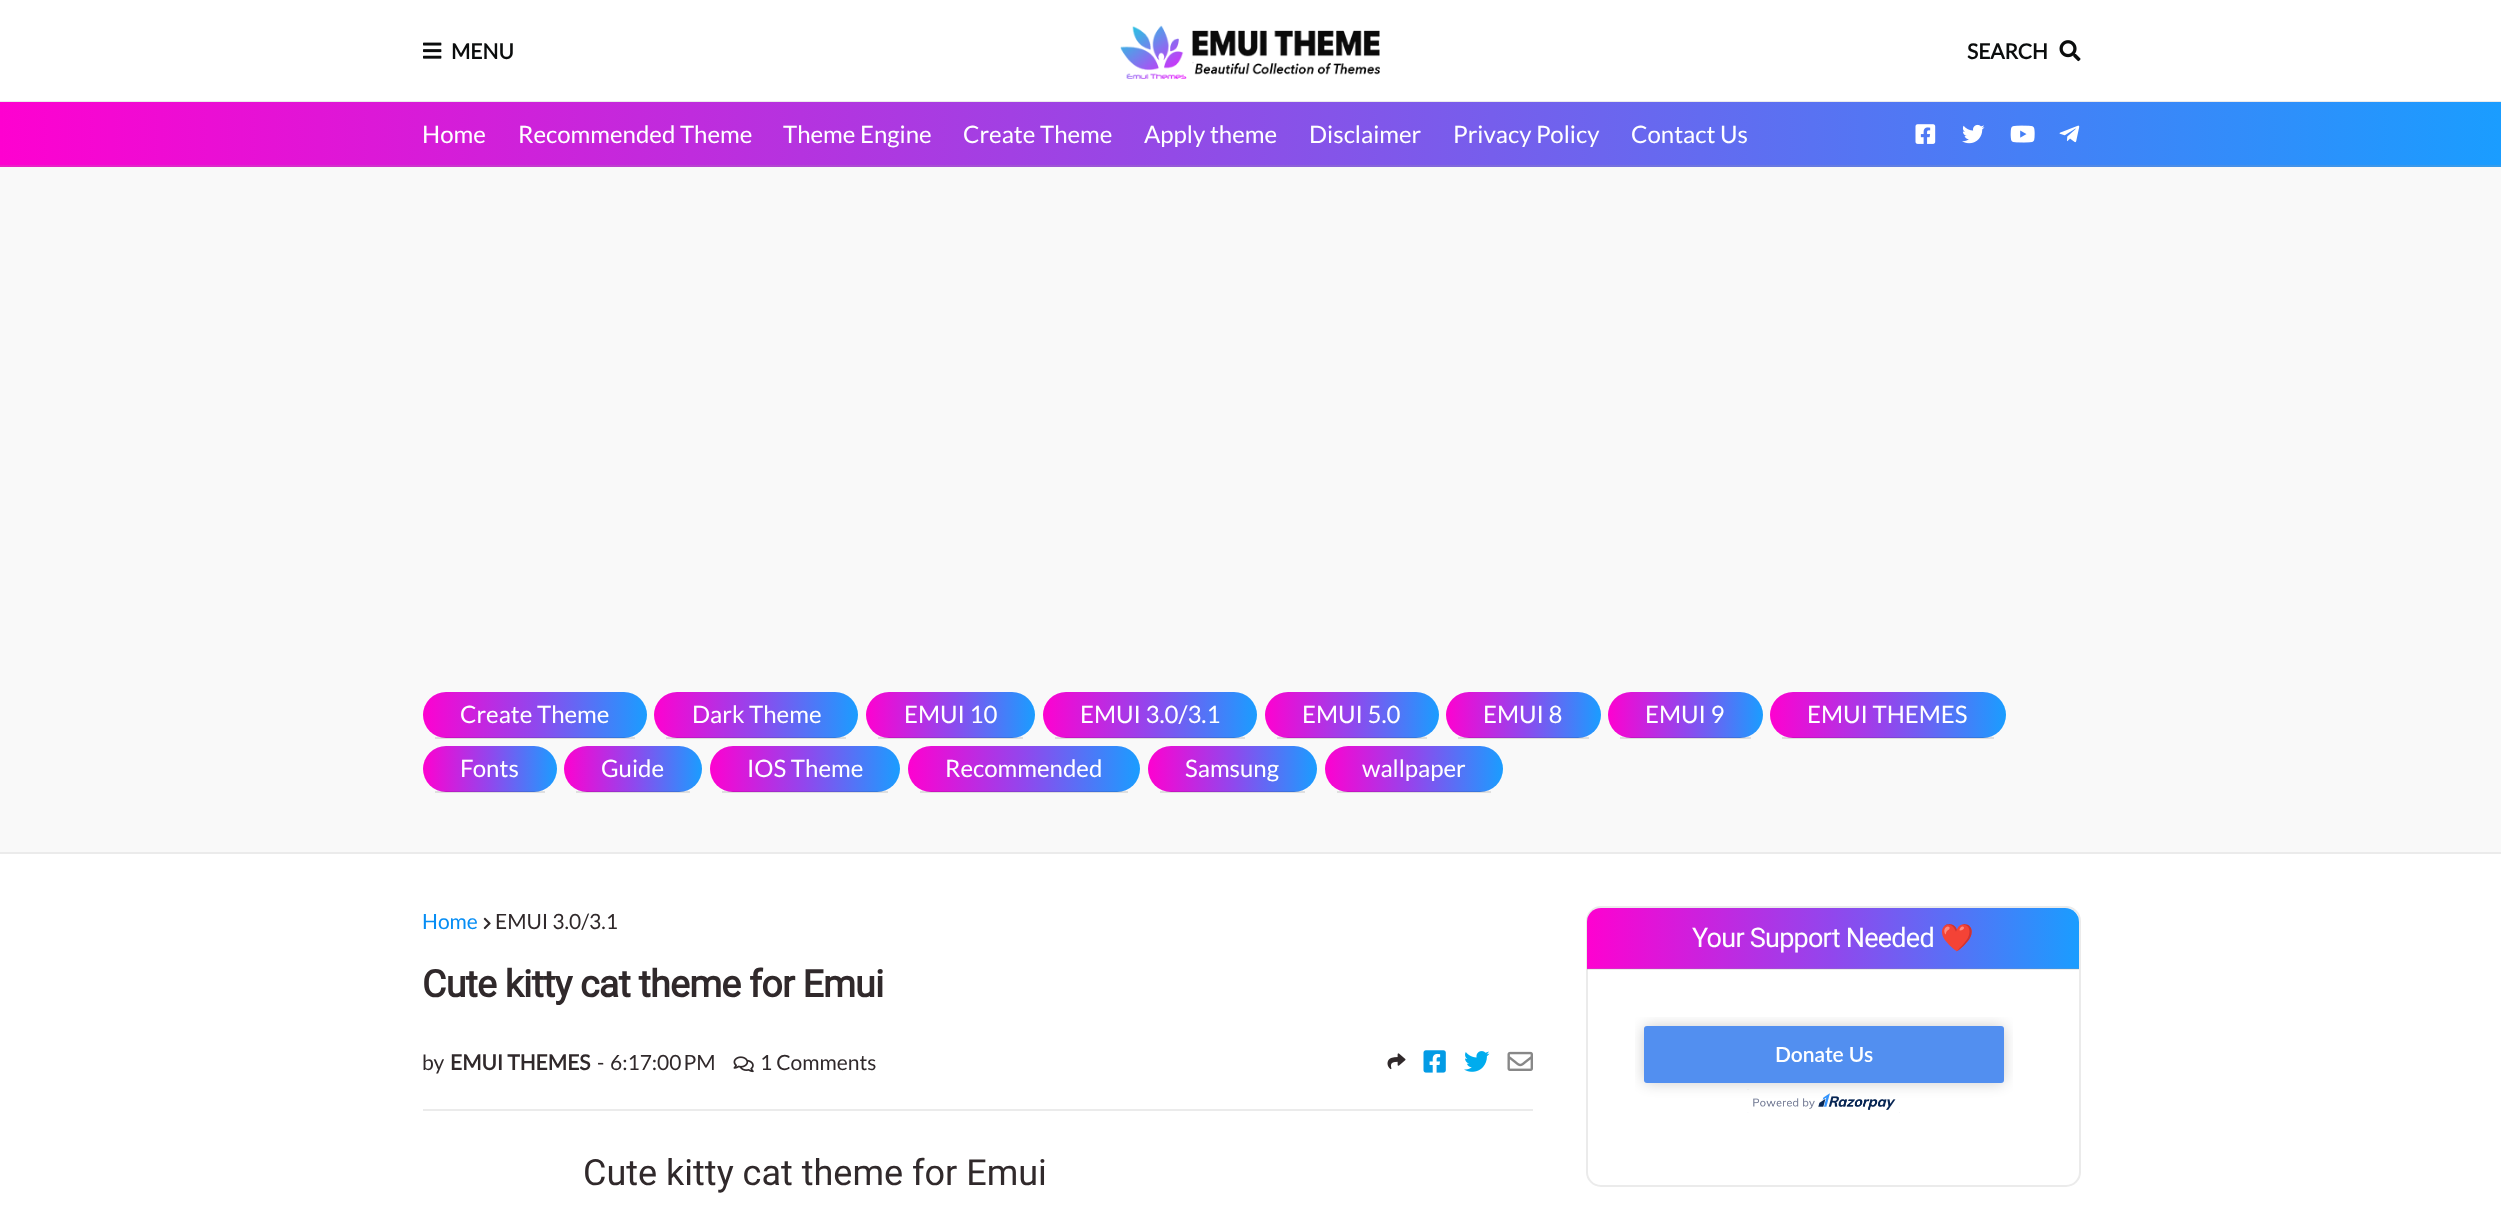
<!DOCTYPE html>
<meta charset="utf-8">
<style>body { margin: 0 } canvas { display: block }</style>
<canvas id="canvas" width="2501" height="1220"></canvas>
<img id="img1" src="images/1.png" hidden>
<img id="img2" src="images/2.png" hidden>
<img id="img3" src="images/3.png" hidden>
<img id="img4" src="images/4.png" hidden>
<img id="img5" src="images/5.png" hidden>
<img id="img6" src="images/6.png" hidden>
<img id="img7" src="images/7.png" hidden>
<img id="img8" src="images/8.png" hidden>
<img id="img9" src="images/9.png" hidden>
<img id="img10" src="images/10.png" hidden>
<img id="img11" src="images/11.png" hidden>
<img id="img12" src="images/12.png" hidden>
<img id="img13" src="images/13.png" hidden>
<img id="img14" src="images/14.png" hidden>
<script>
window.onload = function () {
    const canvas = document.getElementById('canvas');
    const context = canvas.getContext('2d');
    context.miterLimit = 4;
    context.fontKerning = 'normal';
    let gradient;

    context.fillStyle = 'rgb(249, 249, 249)';
    context.fillRect(0, 0, 2501, 1220);
    context.fillStyle = 'rgb(255, 255, 255)';
    context.fillRect(0, 0, 2501, 101);
    context.fillStyle = 'rgb(235, 235, 235)';
    context.fillRect(0, 101, 2501, 1);
    context.drawImage(document.getElementById('img1'), 423, 42, 19, 17);
    context.drawImage(document.getElementById('img2'), 1120, 25, 260, 54);
    context.drawImage(document.getElementById('img3'), 2059, 40, 22, 22);
    gradient = context.createLinearGradient(0, 134, 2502, 133);
    gradient.addColorStop(0, 'rgb(254, 1, 208)');
    gradient.addColorStop(1, 'rgb(26, 157, 255)');
    context.fillStyle = gradient;
    context.fillRect(0, 102, 2501, 63);
    gradient = context.createLinearGradient(0, 134, 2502, 133);
    gradient.addColorStop(0, 'rgb(234, 32, 197)');
    gradient.addColorStop(1, 'rgb(52, 157, 235)');
    context.fillStyle = gradient;
    context.fillRect(0, 165, 2501, 2);
    context.drawImage(document.getElementById('img4'), 1915, 124, 21, 20);
    context.drawImage(document.getElementById('img5'), 1962, 124, 23, 20);
    context.drawImage(document.getElementById('img6'), 2010, 125, 25, 18);
    context.drawImage(document.getElementById('img7'), 2059, 125, 21, 18);
    gradient = context.createLinearGradient(423, 714, 647, 714);
    gradient.addColorStop(0, 'rgb(254, 1, 208)');
    gradient.addColorStop(0.5, 'rgb(145, 71, 237)');
    gradient.addColorStop(1, 'rgb(26, 157, 255)');
    context.fillStyle = gradient;
    context.beginPath();
    context.roundRect(423, 692, 224, 46, 23);
    context.fill();
    context.fillStyle = 'rgba(0, 0, 0, 0.1)';
    context.fillRect(435, 737, 200, 2);
    gradient = context.createLinearGradient(654, 714, 858, 714);
    gradient.addColorStop(0, 'rgb(254, 1, 208)');
    gradient.addColorStop(0.5, 'rgb(145, 71, 237)');
    gradient.addColorStop(1, 'rgb(26, 157, 255)');
    context.fillStyle = gradient;
    context.beginPath();
    context.roundRect(654, 692, 204, 46, 23);
    context.fill();
    context.fillStyle = 'rgba(0, 0, 0, 0.1)';
    context.fillRect(666, 737, 180, 2);
    gradient = context.createLinearGradient(866, 714, 1035, 714);
    gradient.addColorStop(0, 'rgb(254, 1, 208)');
    gradient.addColorStop(0.5, 'rgb(145, 71, 237)');
    gradient.addColorStop(1, 'rgb(26, 157, 255)');
    context.fillStyle = gradient;
    context.beginPath();
    context.roundRect(866, 692, 169, 46, 23);
    context.fill();
    context.fillStyle = 'rgba(0, 0, 0, 0.1)';
    context.fillRect(878, 737, 145, 2);
    gradient = context.createLinearGradient(1043, 714, 1257, 714);
    gradient.addColorStop(0, 'rgb(254, 1, 208)');
    gradient.addColorStop(0.5, 'rgb(145, 71, 237)');
    gradient.addColorStop(1, 'rgb(26, 157, 255)');
    context.fillStyle = gradient;
    context.beginPath();
    context.roundRect(1043, 692, 214, 46, 23);
    context.fill();
    context.fillStyle = 'rgba(0, 0, 0, 0.1)';
    context.fillRect(1055, 737, 190, 2);
    gradient = context.createLinearGradient(1265, 714, 1439, 714);
    gradient.addColorStop(0, 'rgb(254, 1, 208)');
    gradient.addColorStop(0.5, 'rgb(145, 71, 237)');
    gradient.addColorStop(1, 'rgb(26, 157, 255)');
    context.fillStyle = gradient;
    context.beginPath();
    context.roundRect(1265, 692, 174, 46, 23);
    context.fill();
    context.fillStyle = 'rgba(0, 0, 0, 0.1)';
    context.fillRect(1277, 737, 150, 2);
    gradient = context.createLinearGradient(1446, 714, 1601, 714);
    gradient.addColorStop(0, 'rgb(254, 1, 208)');
    gradient.addColorStop(0.5, 'rgb(145, 71, 237)');
    gradient.addColorStop(1, 'rgb(26, 157, 255)');
    context.fillStyle = gradient;
    context.beginPath();
    context.roundRect(1446, 692, 155, 46, 23);
    context.fill();
    context.fillStyle = 'rgba(0, 0, 0, 0.1)';
    context.fillRect(1458, 737, 131, 2);
    gradient = context.createLinearGradient(1608, 714, 1763, 714);
    gradient.addColorStop(0, 'rgb(254, 1, 208)');
    gradient.addColorStop(0.5, 'rgb(145, 71, 237)');
    gradient.addColorStop(1, 'rgb(26, 157, 255)');
    context.fillStyle = gradient;
    context.beginPath();
    context.roundRect(1608, 692, 155, 46, 23);
    context.fill();
    context.fillStyle = 'rgba(0, 0, 0, 0.1)';
    context.fillRect(1620, 737, 131, 2);
    gradient = context.createLinearGradient(1770, 714, 2006, 714);
    gradient.addColorStop(0, 'rgb(254, 1, 208)');
    gradient.addColorStop(0.5, 'rgb(145, 71, 237)');
    gradient.addColorStop(1, 'rgb(26, 157, 255)');
    context.fillStyle = gradient;
    context.beginPath();
    context.roundRect(1770, 692, 236, 46, 23);
    context.fill();
    context.fillStyle = 'rgba(0, 0, 0, 0.1)';
    context.fillRect(1782, 737, 212, 2);
    gradient = context.createLinearGradient(423, 768, 557, 768);
    gradient.addColorStop(0, 'rgb(254, 1, 208)');
    gradient.addColorStop(0.5, 'rgb(145, 71, 237)');
    gradient.addColorStop(1, 'rgb(26, 157, 255)');
    context.fillStyle = gradient;
    context.beginPath();
    context.roundRect(423, 746, 134, 46, 23);
    context.fill();
    context.fillStyle = 'rgba(0, 0, 0, 0.1)';
    context.fillRect(435, 791, 110, 2);
    gradient = context.createLinearGradient(564, 768, 702, 768);
    gradient.addColorStop(0, 'rgb(254, 1, 208)');
    gradient.addColorStop(0.5, 'rgb(145, 71, 237)');
    gradient.addColorStop(1, 'rgb(26, 157, 255)');
    context.fillStyle = gradient;
    context.beginPath();
    context.roundRect(564, 746, 138, 46, 23);
    context.fill();
    context.fillStyle = 'rgba(0, 0, 0, 0.1)';
    context.fillRect(576, 791, 114, 2);
    gradient = context.createLinearGradient(710, 768, 900, 768);
    gradient.addColorStop(0, 'rgb(254, 1, 208)');
    gradient.addColorStop(0.5, 'rgb(145, 71, 237)');
    gradient.addColorStop(1, 'rgb(26, 157, 255)');
    context.fillStyle = gradient;
    context.beginPath();
    context.roundRect(710, 746, 190, 46, 23);
    context.fill();
    context.fillStyle = 'rgba(0, 0, 0, 0.1)';
    context.fillRect(722, 791, 166, 2);
    gradient = context.createLinearGradient(908, 768, 1140, 768);
    gradient.addColorStop(0, 'rgb(254, 1, 208)');
    gradient.addColorStop(0.5, 'rgb(145, 71, 237)');
    gradient.addColorStop(1, 'rgb(26, 157, 255)');
    context.fillStyle = gradient;
    context.beginPath();
    context.roundRect(908, 746, 232, 46, 23);
    context.fill();
    context.fillStyle = 'rgba(0, 0, 0, 0.1)';
    context.fillRect(920, 791, 208, 2);
    gradient = context.createLinearGradient(1148, 768, 1317, 768);
    gradient.addColorStop(0, 'rgb(254, 1, 208)');
    gradient.addColorStop(0.5, 'rgb(145, 71, 237)');
    gradient.addColorStop(1, 'rgb(26, 157, 255)');
    context.fillStyle = gradient;
    context.beginPath();
    context.roundRect(1148, 746, 169, 46, 23);
    context.fill();
    context.fillStyle = 'rgba(0, 0, 0, 0.1)';
    context.fillRect(1160, 791, 145, 2);
    gradient = context.createLinearGradient(1325, 768, 1503, 768);
    gradient.addColorStop(0, 'rgb(254, 1, 208)');
    gradient.addColorStop(0.5, 'rgb(145, 71, 237)');
    gradient.addColorStop(1, 'rgb(26, 157, 255)');
    context.fillStyle = gradient;
    context.beginPath();
    context.roundRect(1325, 746, 178, 46, 23);
    context.fill();
    context.fillStyle = 'rgba(0, 0, 0, 0.1)';
    context.fillRect(1337, 791, 154, 2);
    context.fillStyle = 'rgb(255, 255, 255)';
    context.fillRect(0, 854, 2501, 366);
    context.fillStyle = 'rgb(235, 235, 235)';
    context.fillRect(0, 852, 2501, 2);
    context.fillRect(423, 1109, 1110, 2);
    context.drawImage(document.getElementById('img8'), 483, 917, 8, 13);
    context.drawImage(document.getElementById('img9'), 733, 1056, 21, 17);
    context.drawImage(document.getElementById('img10'), 1387, 1053, 19, 17);
    context.drawImage(document.getElementById('img11'), 1423, 1050, 23, 23);
    context.drawImage(document.getElementById('img12'), 1464, 1051, 26, 21);
    context.drawImage(document.getElementById('img13'), 1507, 1051, 26, 20);
    context.beginPath();
    context.roundRect(1587, 907, 493, 279, 14);
    context.strokeStyle = 'rgb(235, 235, 235)';
    context.lineWidth = 2;
    context.stroke();
    gradient = context.createLinearGradient(1587, 938, 2079, 938);
    gradient.addColorStop(0, 'rgb(254, 1, 208)');
    gradient.addColorStop(0.5, 'rgb(145, 71, 237)');
    gradient.addColorStop(1, 'rgb(26, 157, 255)');
    context.fillStyle = gradient;
    context.beginPath();
    context.roundRect(1587, 908, 492, 61, [14, 14, 0, 0]);
    context.fill();
    context.fillStyle = 'rgba(155, 155, 155, 0.2)';
    context.fillRect(1587, 968, 492, 2);
    context.drawImage(document.getElementById('img14'), 1635, 1017, 378, 96);
    context.font = 'bold 21px Lato';
    context.fillStyle = 'rgb(11, 13, 13)';
    context.fillText('MENU', 451, 59);
    context.fillText('SEARCH', 1967, 59);
    context.font = '24px Lato';
    context.fillStyle = 'rgb(255, 255, 255)';
    context.fillText('Home', 422, 143);
    context.fillText('Recommended Theme', 518, 143);
    context.fillText('Theme Engine', 783, 143);
    context.fillText('Create Theme', 963, 143);
    context.fillText('Apply theme', 1144, 143);
    context.fillText('Disclaimer', 1309, 143);
    context.fillText('Privacy Policy', 1453, 143);
    context.fillText('Contact Us', 1631, 143);
    context.fillText('Create Theme', 460, 723);
    context.fillText('Dark Theme', 692, 723);
    context.fillText('EMUI 10', 904, 723);
    context.fillText('EMUI 3.0/3.1', 1080, 723);
    context.fillText('EMUI 5.0', 1302, 723);
    context.fillText('EMUI 8', 1483, 723);
    context.fillText('EMUI 9', 1645, 723);
    context.fillText('EMUI THEMES', 1807, 723);
    context.fillText('Fonts', 460, 777);
    context.fillText('Guide', 601, 777);
    context.fillText('IOS Theme', 747, 777);
    context.fillText('Recommended', 945, 777);
    context.fillText('Samsung', 1185, 777);
    context.fillText('wallpaper', 1362, 777);
    context.font = '21px Lato';
    context.fillStyle = 'rgb(6, 141, 244)';
    context.fillText('Home', 422, 929);
    context.fillStyle = 'rgb(48, 41, 43)';
    context.fillText('EMUI 3.0/3.1', 495, 929);
    context.letterSpacing = '-0.75px';
    context.font = 'bold 37.5px Roboto';
    context.fillText('Cute kitty cat theme for Emui', 422, 997);
    context.letterSpacing = '0px';
    context.font = '21px Lato';
    context.fillText('by', 422, 1070);
    context.font = 'bold 21px Lato';
    context.fillText('EMUI THEMES', 450, 1070);
    context.font = '21px Lato';
    context.fillText('-', 597, 1070);
    context.fillText('6:17:00 PM', 610, 1070);
    context.fillText('1 Comments', 760, 1070);
    context.font = '36px Roboto';
    context.fillText('Cute kitty cat theme for Emui', 583, 1185);
    context.letterSpacing = '-0.75px';
    context.font = '27px Roboto';
    context.fillStyle = 'rgb(255, 255, 255)';
    context.fillText('Your Support Needed', 1692, 947);
    context.font = '27px Noto Color Emoji';
    context.fillText('❤️', 1940, 947);
};
</script>
